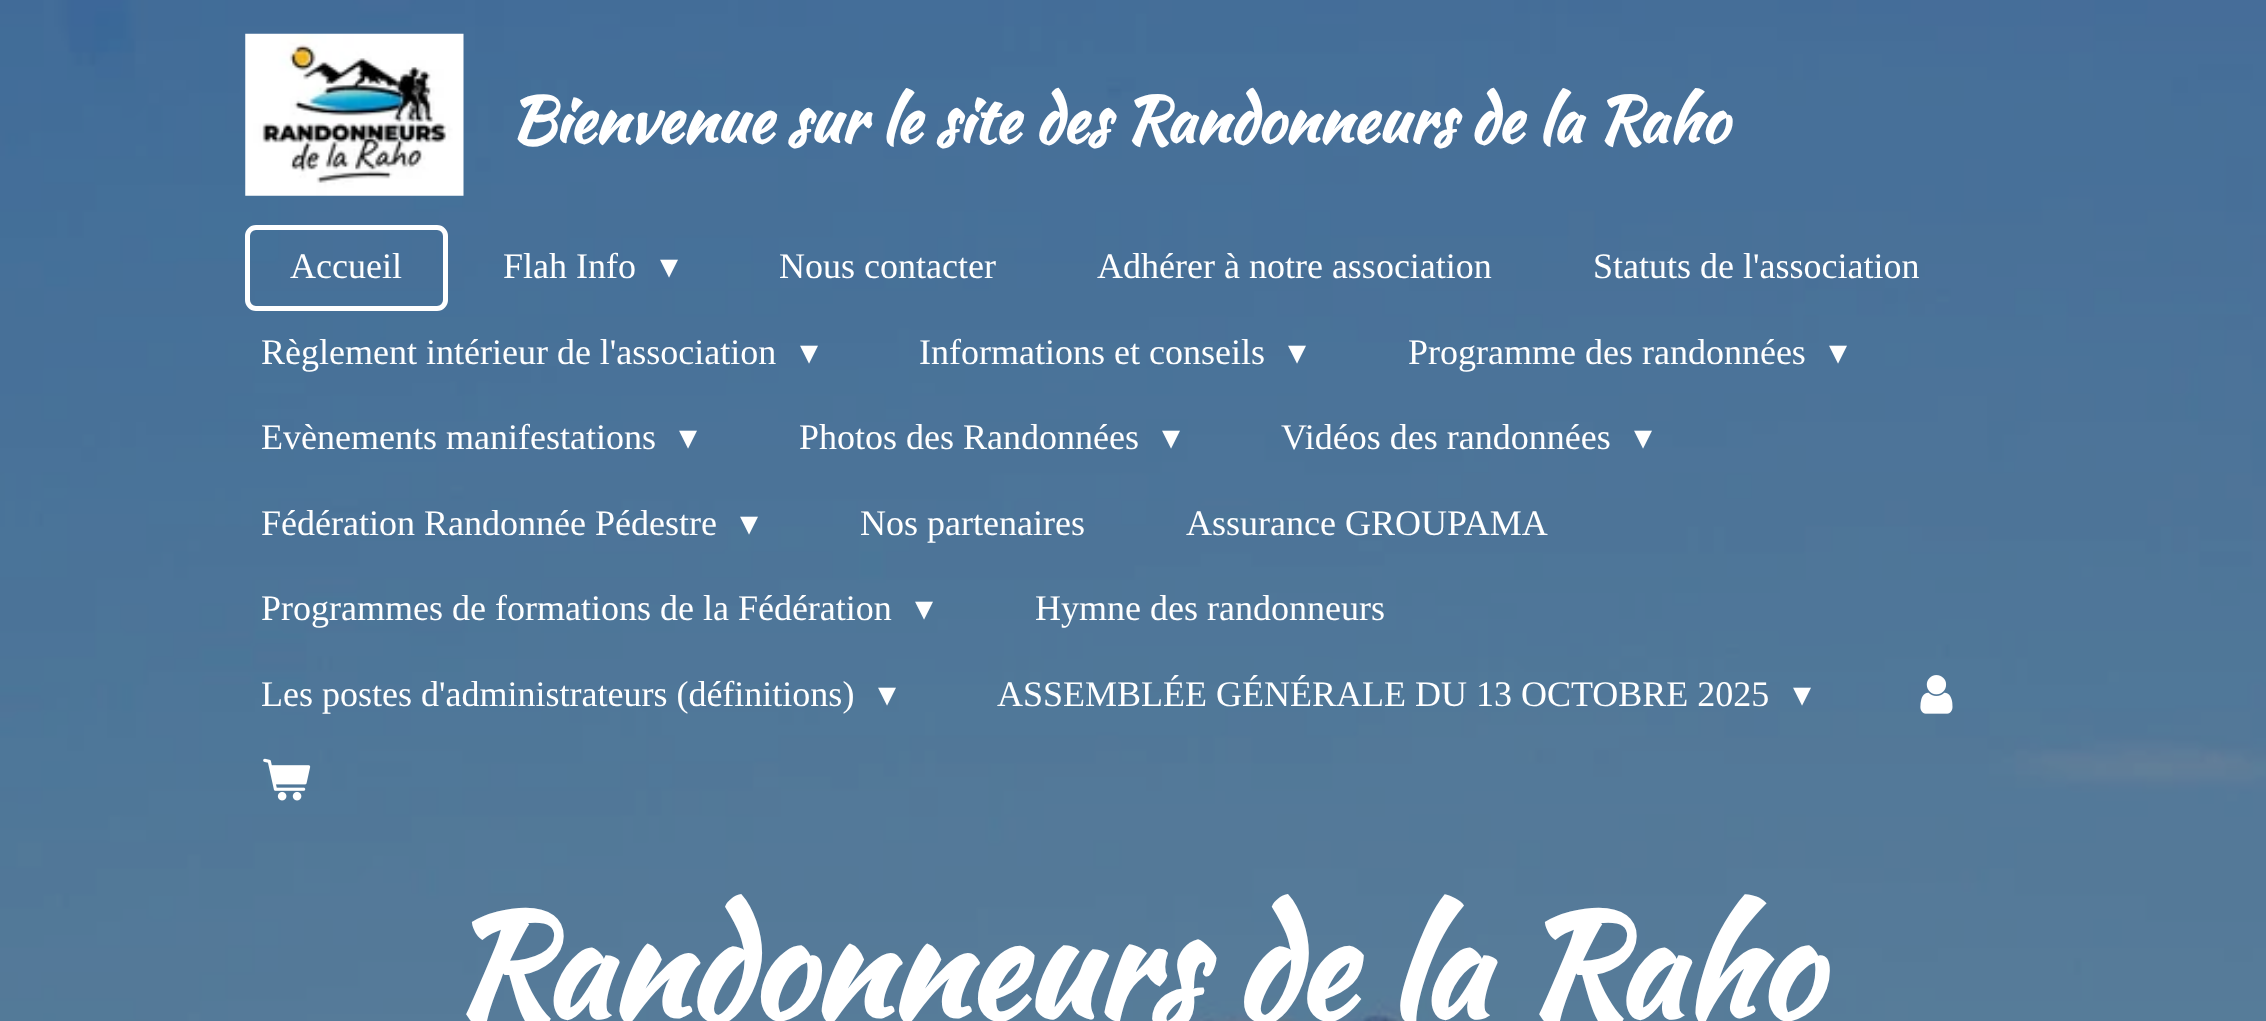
<!DOCTYPE html>
<meta charset="utf-8">
<style>body { margin: 0 } canvas { display: block }</style>
<canvas id="canvas" width="2266" height="1021"></canvas>
<img id="img1" src="images/4.png" hidden>
<img id="img2" src="images/1.png" hidden>
<img id="img3" src="images/2.png" hidden>
<img id="img4" src="images/3.png" hidden>
<script>
window.onload = function () {
    const canvas = document.getElementById('canvas');
    const context = canvas.getContext('2d');
    context.miterLimit = 4;
    context.fontKerning = 'normal';

    context.fillStyle = 'rgb(255, 255, 255)';
    context.fillRect(0, 0, 2266, 1021);
    context.drawImage(document.getElementById('img1'), 0, 0, 2266, 1021);
    context.drawImage(document.getElementById('img2'), 245, 33, 219, 163);
    context.beginPath();
    context.roundRect(247.5, 227.5, 198, 81, 8.5);
    context.strokeStyle = 'rgb(255, 255, 255)';
    context.lineWidth = 5;
    context.stroke();
    context.drawImage(document.getElementById('img3'), 1920, 675, 33, 39);
    context.drawImage(document.getElementById('img4'), 263, 758, 48, 43);
    context.font = 'bold 63px Kaushan Script';
    context.fillText('Bienvenue sur le site des Randonneurs de la Raho', 509, 142);
    context.font = '36px Liberation Serif';
    context.fillText('Accueil', 290, 278);
    context.fillText('Flah Info', 503, 278);
    context.font = '36px DejaVu Sans';
    context.fillText('▾', 660, 278);
    context.font = '36px Liberation Serif';
    context.fillText('Nous contacter', 779, 278);
    context.fillText('Adhérer à notre association', 1097, 278);
    context.fillText('Statuts de l\'association', 1593, 278);
    context.fillText('Règlement intérieur de l\'association', 261, 364);
    context.font = '36px DejaVu Sans';
    context.fillText('▾', 800, 364);
    context.font = '36px Liberation Serif';
    context.fillText('Informations et conseils', 919, 364);
    context.font = '36px DejaVu Sans';
    context.fillText('▾', 1288, 364);
    context.font = '36px Liberation Serif';
    context.fillText('Programme des randonnées', 1408, 364);
    context.font = '36px DejaVu Sans';
    context.fillText('▾', 1829, 364);
    context.font = '36px Liberation Serif';
    context.fillText('Evènements manifestations', 261, 449);
    context.font = '36px DejaVu Sans';
    context.fillText('▾', 679, 449);
    context.font = '36px Liberation Serif';
    context.fillText('Photos des Randonnées', 799, 449);
    context.font = '36px DejaVu Sans';
    context.fillText('▾', 1162, 449);
    context.font = '36px Liberation Serif';
    context.fillText('Vidéos des randonnées', 1281, 449);
    context.font = '36px DejaVu Sans';
    context.fillText('▾', 1634, 449);
    context.font = '36px Liberation Serif';
    context.fillText('Fédération Randonnée Pédestre', 261, 535);
    context.font = '36px DejaVu Sans';
    context.fillText('▾', 740, 535);
    context.font = '36px Liberation Serif';
    context.fillText('Nos partenaires', 860, 535);
    context.fillText('Assurance GROUPAMA', 1186, 535);
    context.fillText('Programmes de formations de la Fédération', 261, 620);
    context.font = '36px DejaVu Sans';
    context.fillText('▾', 915, 620);
    context.font = '36px Liberation Serif';
    context.fillText('Hymne des randonneurs', 1035, 620);
    context.fillText('Les postes d\'administrateurs (définitions)', 261, 706);
    context.font = '36px DejaVu Sans';
    context.fillText('▾', 878, 706);
    context.font = '36px Liberation Serif';
    context.fillText('ASSEMBLÉE GÉNÉRALE DU 13 OCTOBRE 2025', 997, 706);
    context.font = '36px DejaVu Sans';
    context.fillText('▾', 1793, 706);
    context.font = 'bold 143px Kaushan Script';
    context.fillText('Randonneurs de la Raho', 448, 1017);
};
</script>
